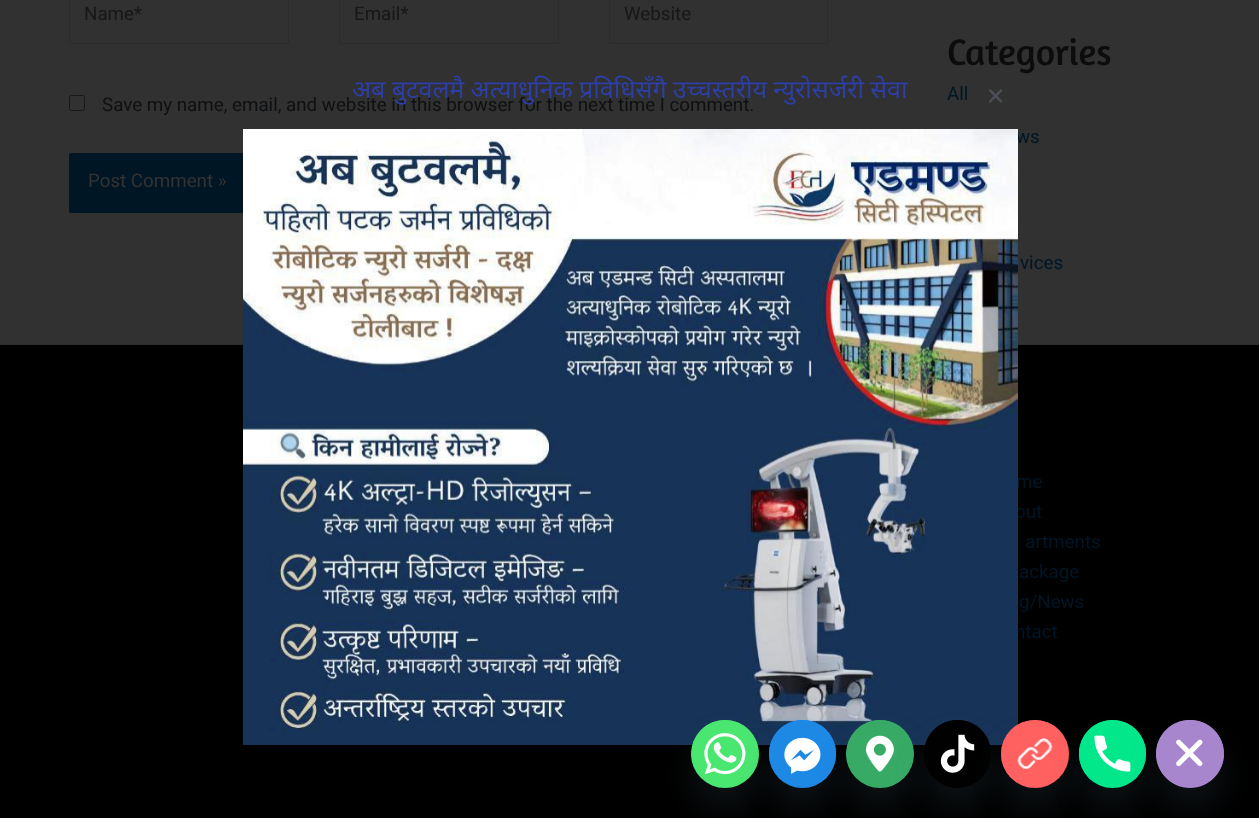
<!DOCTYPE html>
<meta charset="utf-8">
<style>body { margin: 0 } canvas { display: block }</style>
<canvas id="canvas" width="1259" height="818"></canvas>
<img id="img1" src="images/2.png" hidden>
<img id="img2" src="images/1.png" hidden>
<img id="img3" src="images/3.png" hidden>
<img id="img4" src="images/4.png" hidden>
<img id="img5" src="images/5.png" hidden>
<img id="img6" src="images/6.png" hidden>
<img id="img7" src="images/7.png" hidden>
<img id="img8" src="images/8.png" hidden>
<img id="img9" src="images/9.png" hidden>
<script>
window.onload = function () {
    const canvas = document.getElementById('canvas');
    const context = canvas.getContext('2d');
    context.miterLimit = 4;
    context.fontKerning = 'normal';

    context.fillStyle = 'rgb(49, 49, 49)';
    context.fillRect(0, 0, 1259, 818);
    context.strokeStyle = 'rgb(44, 44, 44)';
    context.strokeRect(69.5, -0.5, 219, 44);
    context.strokeRect(339.5, -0.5, 219, 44);
    context.strokeRect(609.5, -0.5, 218, 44);
    context.beginPath();
    context.roundRect(69.5, 95.5, 15, 15, 2);
    context.strokeStyle = 'rgb(24, 24, 24)';
    context.stroke();
    context.fillStyle = 'rgb(0, 22, 37)';
    context.beginPath();
    context.roundRect(69, 153, 176, 60, 2.5);
    context.fill();
    context.fillStyle = 'rgb(0, 0, 0)';
    context.fillRect(0, 345, 1259, 473);
    context.fillStyle = 'rgb(46, 46, 46)';
    context.fillRect(0, 344, 1259, 1);
    context.drawImage(document.getElementById('img1'), 989, 89, 14, 14);
    context.font = '18.75px Roboto';
    context.fillStyle = 'rgb(23, 23, 23)';
    context.fillText('Name*', 84, 20);
    context.fillText('Email*', 354, 20);
    context.fillText('Website', 624, 20);
    context.fillStyle = 'rgb(15, 16, 18)';
    context.fillText('Save my name, email, and website in this browser for the next time I comment.', 102, 111);
    context.fillStyle = 'rgb(51, 51, 51)';
    context.fillText('Post Comment »', 88, 187);
    context.font = '37.5px Amaranth';
    context.fillStyle = 'rgb(12, 12, 12)';
    context.fillText('Categories', 947, 65);
    context.font = '18.75px Roboto';
    context.fillStyle = 'rgb(0, 22, 37)';
    context.fillText('All', 947, 100);
    context.fillText('ws', 1016, 143);
    context.fillText('vices', 1020, 269);
    context.fillText('me', 1016, 488);
    context.fillText('out', 1015, 518);
    context.fillText('artments', 1025, 548);
    context.fillText('ackage', 1019, 578);
    context.fillText('g/News', 1019, 608);
    context.fillText('ntact', 1015, 638);
    context.wordSpacing = '-0.25px';
    context.font = '25px Noto Sans';
    context.fillStyle = 'rgb(45, 63, 167)';
    context.fillText('अब बुटवलमै अत्याधुनिक प्रविधिसँगै उच्चस्तरीय न्युरोसर्जरी सेवा', 352, 98);
    context.drawImage(document.getElementById('img2'), 243, 129, 775, 616);
    context.fillStyle = 'rgba(73, 104, 126, 0.16)';
    context.filter = 'blur(15px)';
    context.beginPath();
    context.roundRect(691, 740, 68, 68, 34);
    context.fill();
    context.filter = 'none';
    context.fillStyle = 'rgb(73, 230, 112)';
    context.beginPath();
    context.arc(725, 754, 34, 0, 2 * Math.PI);
    context.fill();
    context.drawImage(document.getElementById('img3'), 691, 720, 68, 55);
    context.fillStyle = 'rgba(73, 104, 126, 0.16)';
    context.filter = 'blur(15px)';
    context.beginPath();
    context.roundRect(769, 740, 67, 68, 33.5);
    context.fill();
    context.filter = 'none';
    context.fillStyle = 'rgb(30, 136, 229)';
    context.beginPath();
    context.roundRect(769, 720, 67, 68, 33.5);
    context.fill();
    context.drawImage(document.getElementById('img4'), 769, 720, 67, 54);
    context.fillStyle = 'rgba(73, 104, 126, 0.16)';
    context.filter = 'blur(15px)';
    context.beginPath();
    context.roundRect(846, 740, 68, 68, 34);
    context.fill();
    context.filter = 'none';
    context.fillStyle = 'rgb(55, 170, 102)';
    context.beginPath();
    context.arc(880, 754, 34, 0, 2 * Math.PI);
    context.fill();
    context.drawImage(document.getElementById('img5'), 846, 720, 68, 52);
    context.fillStyle = 'rgba(73, 104, 126, 0.16)';
    context.filter = 'blur(15px)';
    context.beginPath();
    context.roundRect(924, 740, 67, 68, 33.5);
    context.fill();
    context.filter = 'none';
    context.fillStyle = 'rgb(0, 1, 0)';
    context.beginPath();
    context.roundRect(924, 720, 67, 68, 33.5);
    context.fill();
    context.drawImage(document.getElementById('img6'), 925, 720, 65, 53);
    context.fillStyle = 'rgba(73, 104, 126, 0.16)';
    context.filter = 'blur(15px)';
    context.beginPath();
    context.roundRect(1001, 740, 68, 68, 34);
    context.fill();
    context.filter = 'none';
    context.fillStyle = 'rgb(255, 96, 96)';
    context.beginPath();
    context.arc(1035, 754, 34, 0, 2 * Math.PI);
    context.fill();
    context.drawImage(document.getElementById('img7'), 1001, 720, 69, 67);
    context.fillStyle = 'rgba(73, 104, 126, 0.16)';
    context.filter = 'blur(15px)';
    context.beginPath();
    context.roundRect(1079, 740, 67, 68, 33.5);
    context.fill();
    context.filter = 'none';
    context.fillStyle = 'rgb(3, 231, 139)';
    context.beginPath();
    context.roundRect(1079, 720, 67, 68, 33.5);
    context.fill();
    context.drawImage(document.getElementById('img8'), 1079, 720, 67, 54);
    context.fillStyle = 'rgba(73, 104, 126, 0.16)';
    context.filter = 'blur(15px)';
    context.beginPath();
    context.roundRect(1156, 740, 68, 68, 34);
    context.fill();
    context.filter = 'none';
    context.fillStyle = 'rgb(168, 134, 205)';
    context.beginPath();
    context.moveTo(1190, 788);
    context.bezierCurveTo(1171, 788, 1156, 772, 1156, 754);
    context.bezierCurveTo(1156, 735, 1171, 720, 1190, 720);
    context.bezierCurveTo(1209, 720, 1224, 735, 1224, 754);
    context.bezierCurveTo(1224, 772, 1209, 788, 1190, 788);
    context.closePath();
    context.fill();
    context.drawImage(document.getElementById('img9'), 1156, 720, 68, 65);
};
</script>
